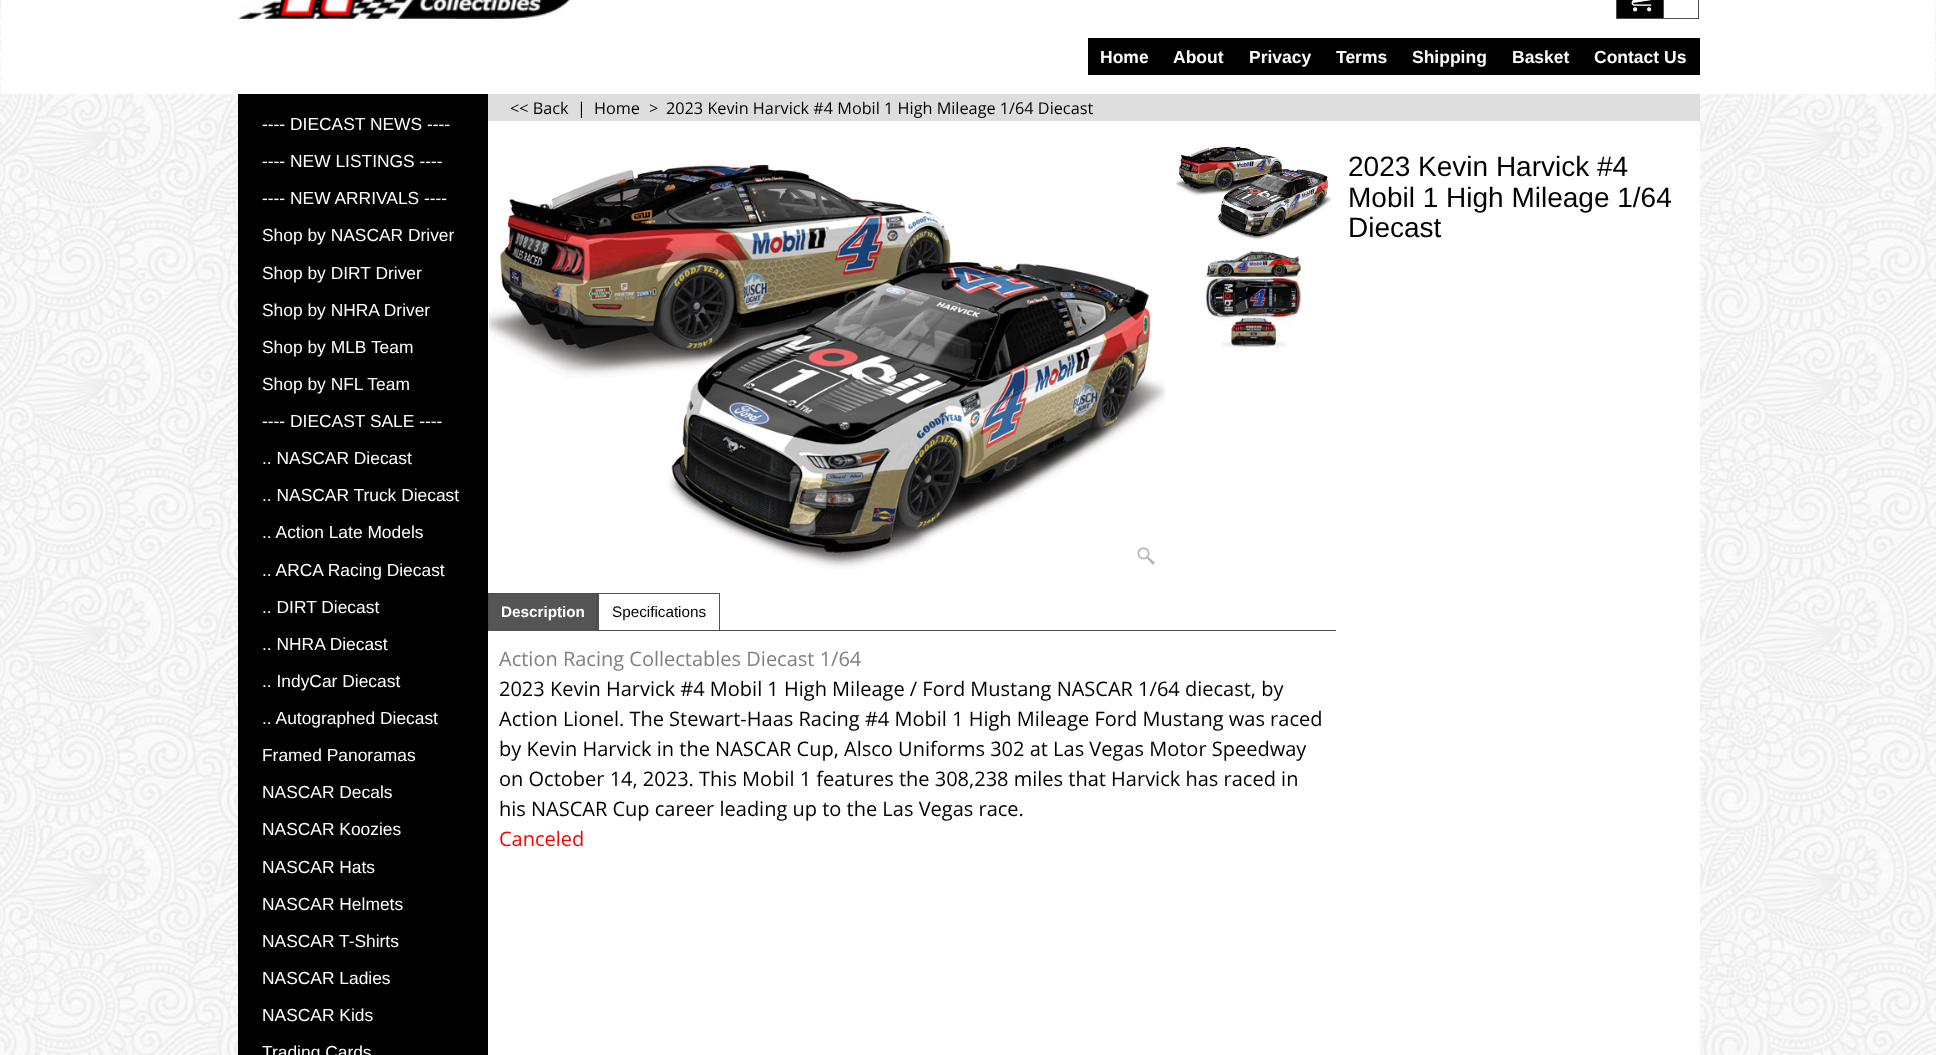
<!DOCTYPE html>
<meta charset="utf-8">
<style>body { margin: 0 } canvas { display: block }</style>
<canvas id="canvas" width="1936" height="1055"></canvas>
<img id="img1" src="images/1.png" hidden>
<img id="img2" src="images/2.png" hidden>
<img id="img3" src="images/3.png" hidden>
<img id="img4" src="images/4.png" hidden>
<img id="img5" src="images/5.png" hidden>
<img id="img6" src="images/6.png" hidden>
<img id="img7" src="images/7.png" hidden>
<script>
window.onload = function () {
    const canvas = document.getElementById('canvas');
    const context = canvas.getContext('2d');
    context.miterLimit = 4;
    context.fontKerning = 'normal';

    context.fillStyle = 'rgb(255, 255, 255)';
    context.fillRect(0, 0, 1936, 1055);
    context.drawImage(document.getElementById('img1'), 0, 0, 1936, 1055);
    context.fillRect(1, 0, 1934, 94);
    context.drawImage(document.getElementById('img2'), 238, 0, 333, 19);
    context.fillStyle = 'rgb(0, 0, 0)';
    context.beginPath();
    context.rect(1616.5, -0.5, 47, 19);
    context.fill();
    context.strokeStyle = 'rgb(76, 76, 76)';
    context.stroke();
    context.drawImage(document.getElementById('img3'), 1631, 0, 21, 12);
    context.strokeRect(1663.5, -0.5, 35, 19);
    context.fillRect(1088, 38, 612, 37);
    context.fillRect(238, 94, 250, 961);
    context.fillStyle = 'rgb(255, 255, 255)';
    context.fillRect(488, 121, 1212, 934);
    context.fillStyle = 'rgb(222, 222, 222)';
    context.fillRect(488, 94, 1212, 27);
    context.drawImage(document.getElementById('img4'), 489, 164, 676, 406);
    context.drawImage(document.getElementById('img5'), 1137, 547, 18, 18);
    context.drawImage(document.getElementById('img6'), 1176, 146, 156, 94);
    context.drawImage(document.getElementById('img7'), 1204, 251, 99, 97);
    context.fillStyle = 'rgb(85, 85, 85)';
    context.fillRect(488, 594, 110, 37);
    context.fillStyle = 'rgb(76, 76, 76)';
    context.fillRect(488, 593, 110, 1);
    context.beginPath();
    context.moveTo(597.5, 592.5);
    context.lineTo(597.5, 631);
    context.lineTo(596, 630);
    context.lineTo(596, 594);
    context.closePath();
    context.fill();
    context.save();
    context.beginPath();
    context.rect(488, 593, 848, 38);
    context.clip();
    context.beginPath();
    context.moveTo(487.5, 631);
    context.lineTo(487.5, 592.5);
    context.lineTo(489, 594);
    context.lineTo(489, 630);
    context.closePath();
    context.fill();
    context.restore();
    context.fillStyle = 'rgb(85, 85, 85)';
    context.fillRect(598, 593, 122, 1);
    context.fillRect(719, 593, 1, 37);
    context.fillRect(598, 593, 1, 37);
    context.fillStyle = 'rgb(76, 76, 76)';
    context.fillRect(598, 630, 738, 1);
    context.font = 'bold 17.5px Liberation Sans';
    context.fillStyle = 'rgb(255, 255, 255)';
    context.fillText('Home', 1100, 63);
    context.fillText('About', 1173, 63);
    context.fillText('Privacy', 1249, 63);
    context.fillText('Terms', 1336, 63);
    context.fillText('Shipping', 1412, 63);
    context.fillText('Basket', 1512, 63);
    context.fillText('Contact Us', 1594, 63);
    context.font = '17.4px Liberation Sans';
    context.fillText('---- DIECAST NEWS ----', 262, 130);
    context.fillText('---- NEW LISTINGS ----', 262, 167);
    context.fillText('---- NEW ARRIVALS ----', 262, 204);
    context.fillText('Shop by NASCAR Driver', 262, 241);
    context.fillText('Shop by DIRT Driver', 262, 279);
    context.fillText('Shop by NHRA Driver', 262, 316);
    context.fillText('Shop by MLB Team', 262, 353);
    context.fillText('Shop by NFL Team', 262, 390);
    context.fillText('---- DIECAST SALE ----', 262, 427);
    context.fillText('.. NASCAR Diecast', 262, 464);
    context.fillText('.. NASCAR Truck Diecast', 262, 501);
    context.fillText('.. Action Late Models', 262, 538);
    context.fillText('.. ARCA Racing Diecast', 262, 576);
    context.fillText('.. DIRT Diecast', 262, 613);
    context.fillText('.. NHRA Diecast', 262, 650);
    context.fillText('.. IndyCar Diecast', 262, 687);
    context.fillText('.. Autographed Diecast', 262, 724);
    context.fillText('Framed Panoramas', 262, 761);
    context.fillText('NASCAR Decals', 262, 798);
    context.fillText('NASCAR Koozies', 262, 835);
    context.fillText('NASCAR Hats', 262, 873);
    context.fillText('NASCAR Helmets', 262, 910);
    context.fillText('NASCAR T-Shirts', 262, 947);
    context.fillText('NASCAR Ladies', 262, 984);
    context.fillText('NASCAR Kids', 262, 1021);
    context.fillText('Trading Cards', 262, 1058);
    context.font = '16.25px Open Sans';
    context.fillStyle = 'rgb(0, 0, 0)';
    context.fillText('<< Back', 510, 114);
    context.fillText('|', 577, 114);
    context.fillText('Home', 594, 114);
    context.fillText('>', 649, 114);
    context.fillText('2023 Kevin Harvick #4 Mobil 1 High Mileage 1/64 Diecast', 666, 114);
    context.font = '28px Liberation Sans';
    context.fillText('2023 Kevin Harvick #4', 1348, 176);
    context.fillText('Mobil 1 High Mileage 1/64', 1348, 207);
    context.fillText('Diecast', 1348, 237);
    context.font = 'bold 15.25px Liberation Sans';
    context.fillStyle = 'rgb(255, 255, 255)';
    context.fillText('Description', 501, 617);
    context.font = '15.25px Liberation Sans';
    context.fillStyle = 'rgb(0, 0, 0)';
    context.fillText('Specifications', 612, 617);
    context.font = '20px Open Sans';
    context.fillStyle = 'rgb(128, 128, 128)';
    context.fillText('Action Racing Collectables Diecast 1/64', 499, 666);
    context.fillStyle = 'rgb(0, 0, 0)';
    context.fillText('2023 Kevin Harvick #4 Mobil 1 High Mileage / Ford Mustang NASCAR 1/64 diecast, by', 499, 696);
    context.fillText('Action Lionel. The Stewart-Haas Racing #4 Mobil 1 High Mileage Ford Mustang was raced', 499, 726);
    context.fillText('by Kevin Harvick in the NASCAR Cup, Alsco Uniforms 302 at Las Vegas Motor Speedway', 499, 756);
    context.fillText('on October 14, 2023. This Mobil 1 features the 308,238 miles that Harvick has raced in', 499, 786);
    context.fillText('his NASCAR Cup career leading up to the Las Vegas race.', 499, 816);
    context.fillStyle = 'rgb(255, 0, 0)';
    context.fillText('Canceled', 499, 846);
};
</script>
